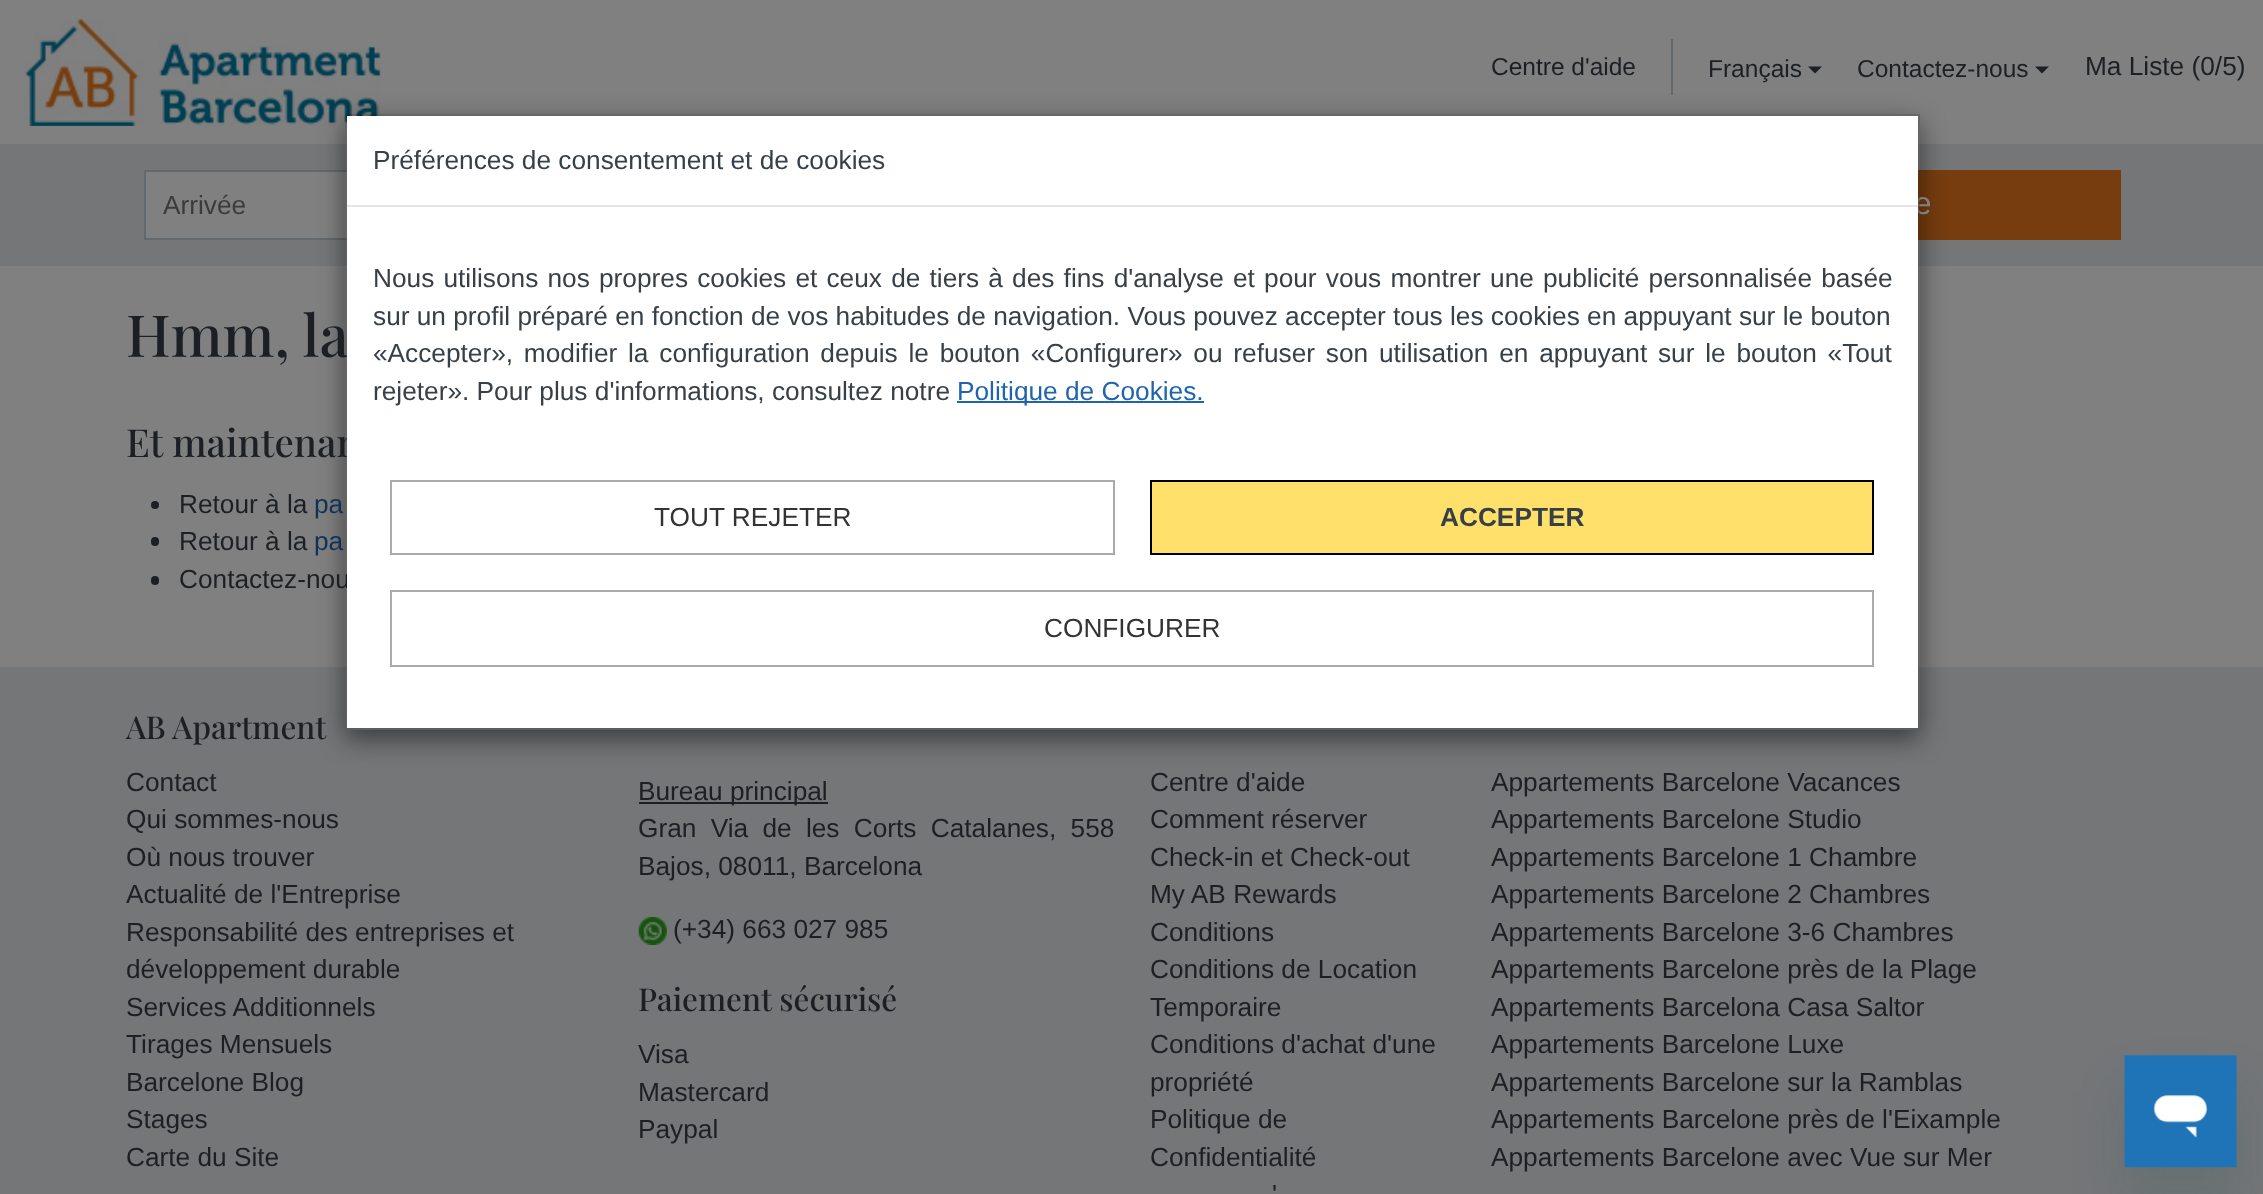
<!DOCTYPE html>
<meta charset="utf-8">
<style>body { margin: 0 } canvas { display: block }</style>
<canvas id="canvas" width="2263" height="1194"></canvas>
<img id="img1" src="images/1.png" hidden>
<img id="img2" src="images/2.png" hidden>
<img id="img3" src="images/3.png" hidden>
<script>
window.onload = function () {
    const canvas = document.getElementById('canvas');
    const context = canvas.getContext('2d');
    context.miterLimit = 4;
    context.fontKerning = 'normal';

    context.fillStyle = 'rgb(128, 128, 128)';
    context.fillRect(0, 0, 2263, 1194);
    context.drawImage(document.getElementById('img1'), 25, 19, 356, 107);
    context.fillStyle = 'rgb(99, 105, 108)';
    context.fillRect(1671, 39, 2, 56);
    context.fillStyle = 'rgb(28, 32, 36)';
    context.beginPath();
    context.moveTo(1808, 66.5);
    context.lineTo(1822, 66.5);
    context.lineTo(1815, 73.5);
    context.closePath();
    context.fill();
    context.beginPath();
    context.moveTo(2035, 66.5);
    context.lineTo(2049, 66.5);
    context.lineTo(2042, 73.5);
    context.closePath();
    context.fill();
    context.fillStyle = 'rgb(116, 118, 120)';
    context.fillRect(0, 144, 2263, 122);
    context.fillStyle = 'rgb(128, 128, 128)';
    context.fillRect(146, 172, 201, 66);
    context.strokeStyle = 'rgb(99, 105, 108)';
    context.lineWidth = 2;
    context.strokeRect(145, 171, 467, 68);
    context.fillStyle = 'rgb(119, 61, 15)';
    context.fillRect(1918, 170, 203, 70);
    context.fillStyle = 'rgb(116, 118, 120)';
    context.fillRect(0, 667, 2263, 527);
    context.save();
    context.beginPath();
    context.moveTo(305, 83);
    context.lineTo(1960, 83);
    context.lineTo(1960, 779);
    context.lineTo(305, 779);
    context.closePath();
    context.moveTo(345, 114);
    context.lineTo(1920, 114);
    context.lineTo(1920, 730);
    context.lineTo(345, 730);
    context.closePath();
    context.clip('evenodd');
    context.fillStyle = 'rgba(0, 0, 0, 0.5)';
    context.filter = 'blur(13px)';
    context.beginPath();
    context.rect(345, 123, 1575, 616);
    context.fill();
    context.filter = 'none';
    context.restore();
    context.fillStyle = 'rgb(28, 32, 36)';
    context.beginPath();
    context.arc(155, 505, 4, 0, 2 * Math.PI);
    context.fill();
    context.beginPath();
    context.roundRect(151, 537, 8, 9, 4);
    context.fill();
    context.beginPath();
    context.roundRect(151, 576, 8, 9, 4);
    context.fill();
    context.fillRect(639, 802, 189, 2);
    context.drawImage(document.getElementById('img2'), 638, 917, 29, 28);
    context.fillStyle = 'rgba(23, 73, 77, 0.15)';
    context.filter = 'blur(26px)';
    context.beginPath();
    context.rect(2125, 1090, 112, 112);
    context.fill();
    context.filter = 'none';
    context.drawImage(document.getElementById('img3'), 2124, 1055, 113, 113);
    context.font = '24.5px Liberation Sans';
    context.fillStyle = 'rgb(28, 32, 36)';
    context.fillText('Centre d\'aide', 1491, 75);
    context.fillText('Français', 1708, 77);
    context.fillText('Contactez-nous', 1857, 77);
    context.font = '26.25px Liberation Sans';
    context.fillText('Ma Liste (0/5)', 2085, 75);
    context.fillStyle = 'rgb(59, 59, 59)';
    context.fillText('Arrivée', 163, 214);
    context.font = '31.5px Liberation Sans';
    context.fillStyle = 'rgb(128, 128, 128)';
    context.fillText('e', 1914, 214);
    context.font = '500 58px Playfair Display';
    context.fillStyle = 'rgb(28, 32, 36)';
    context.fillText('Hmm, la', 126, 357);
    context.font = '500 38.5px Playfair Display';
    context.fillText('Et maintenan', 126, 457);
    context.font = '26.25px Liberation Sans';
    context.fillText('Retour à la', 179, 513);
    context.fillStyle = 'rgb(16, 50, 87)';
    context.fillText('pa', 314, 513);
    context.fillStyle = 'rgb(28, 32, 36)';
    context.fillText('Retour à la', 179, 550);
    context.fillStyle = 'rgb(16, 50, 87)';
    context.fillText('pa', 314, 550);
    context.fillStyle = 'rgb(28, 32, 36)';
    context.fillText('Contactez-nou', 179, 588);
    context.fillStyle = 'rgb(255, 255, 255)';
    context.fillRect(347, 116, 1571, 612);
    context.strokeStyle = 'rgba(0, 0, 0, 0.2)';
    context.strokeRect(346, 115, 1573, 614);
    context.strokeStyle = 'rgb(170, 170, 170)';
    context.strokeRect(391, 591, 1482, 75);
    context.fillStyle = 'rgb(51, 51, 51)';
    context.fillText('CONFIGURER', 1044, 637);
    context.fillStyle = 'rgb(255, 224, 106)';
    context.beginPath();
    context.rect(1151, 481, 722, 73);
    context.fill();
    context.strokeStyle = 'rgb(0, 0, 0)';
    context.stroke();
    context.font = 'bold 26.25px Liberation Sans';
    context.fillStyle = 'rgb(56, 64, 71)';
    context.fillText('ACCEPTER', 1440, 526);
    context.strokeStyle = 'rgb(170, 170, 170)';
    context.strokeRect(391, 481, 723, 73);
    context.font = '26.25px Liberation Sans';
    context.fillStyle = 'rgb(51, 51, 51)';
    context.fillText('TOUT REJETER', 654, 526);
    context.fillStyle = 'rgb(31, 100, 173)';
    context.fillRect(957, 401, 247, 2);
    context.fillText('Politique de Cookies.', 957, 400);
    context.fillStyle = 'rgb(56, 64, 71)';
    context.fillText('rejeter». Pour plus d\'informations, consultez notre', 373, 400);
    context.wordSpacing = '3.5px';
    context.fillText('«Accepter», modifier la configuration depuis le bouton «Configurer» ou refuser son utilisation en appuyant sur le bouton «Tout', 373, 362);
    context.wordSpacing = '0px';
    context.fillText('sur un profil préparé en fonction de vos habitudes de navigation. Vous pouvez accepter tous les cookies en appuyant sur le bouton', 373, 325);
    context.wordSpacing = '1.9px';
    context.fillText('Nous utilisons nos propres cookies et ceux de tiers à des fins d\'analyse et pour vous montrer une publicité personnalisée basée', 373, 287);
    context.wordSpacing = '0px';
    context.fillText('Préférences de consentement et de cookies', 373, 169);
    context.fillStyle = 'rgb(229, 229, 229)';
    context.fillRect(347, 205, 1571, 2);
    context.font = '500 31.5px Playfair Display';
    context.fillStyle = 'rgb(28, 32, 36)';
    context.fillText('AB Apartment', 126, 739);
    context.font = '26.25px Liberation Sans';
    context.fillText('Contact', 126, 791);
    context.fillText('Qui sommes-nous', 126, 828);
    context.fillText('Où nous trouver', 126, 866);
    context.fillText('Actualité de l\'Entreprise', 126, 903);
    context.fillText('Responsabilité des entreprises et', 126, 941);
    context.fillText('développement durable', 126, 978);
    context.fillText('Services Additionnels', 126, 1016);
    context.fillText('Tirages Mensuels', 126, 1053);
    context.fillText('Barcelone Blog', 126, 1091);
    context.fillText('Stages', 126, 1128);
    context.fillText('Carte du Site', 126, 1166);
    context.fillText('Bureau principal', 638, 800);
    context.wordSpacing = '7px';
    context.fillText('Gran Via de les Corts Catalanes, 558', 638, 837);
    context.wordSpacing = '0px';
    context.fillText('Bajos, 08011, Barcelona', 638, 875);
    context.fillText('(+34) 663 027 985', 673, 938);
    context.font = '500 31.5px Playfair Display';
    context.fillText('Paiement sécurisé', 638, 1011);
    context.font = '26.25px Liberation Sans';
    context.fillText('Visa', 638, 1063);
    context.fillText('Mastercard', 638, 1101);
    context.fillText('Paypal', 638, 1138);
    context.fillText('Centre d\'aide', 1150, 791);
    context.fillText('Comment réserver', 1150, 828);
    context.fillText('Check-in et Check-out', 1150, 866);
    context.fillText('My AB Rewards', 1150, 903);
    context.fillText('Conditions', 1150, 941);
    context.fillText('Conditions de Location', 1150, 978);
    context.fillText('Temporaire', 1150, 1016);
    context.fillText('Conditions d\'achat d\'une', 1150, 1053);
    context.fillText('propriété', 1150, 1091);
    context.fillText('Politique de', 1150, 1128);
    context.fillText('Confidentialité', 1150, 1166);
    context.fillText('\'', 1272, 1203);
    context.fillText('Appartements Barcelone Vacances', 1491, 791);
    context.fillText('Appartements Barcelone Studio', 1491, 828);
    context.fillText('Appartements Barcelone 1 Chambre', 1491, 866);
    context.fillText('Appartements Barcelone 2 Chambres', 1491, 903);
    context.fillText('Appartements Barcelone 3-6 Chambres', 1491, 941);
    context.fillText('Appartements Barcelone près de la Plage', 1491, 978);
    context.fillText('Appartements Barcelona Casa Saltor', 1491, 1016);
    context.fillText('Appartements Barcelone Luxe', 1491, 1053);
    context.fillText('Appartements Barcelone sur la Ramblas', 1491, 1091);
    context.fillText('Appartements Barcelone près de l\'Eixample', 1491, 1128);
    context.fillText('Appartements Barcelone avec Vue sur Mer', 1491, 1166);
};
</script>
